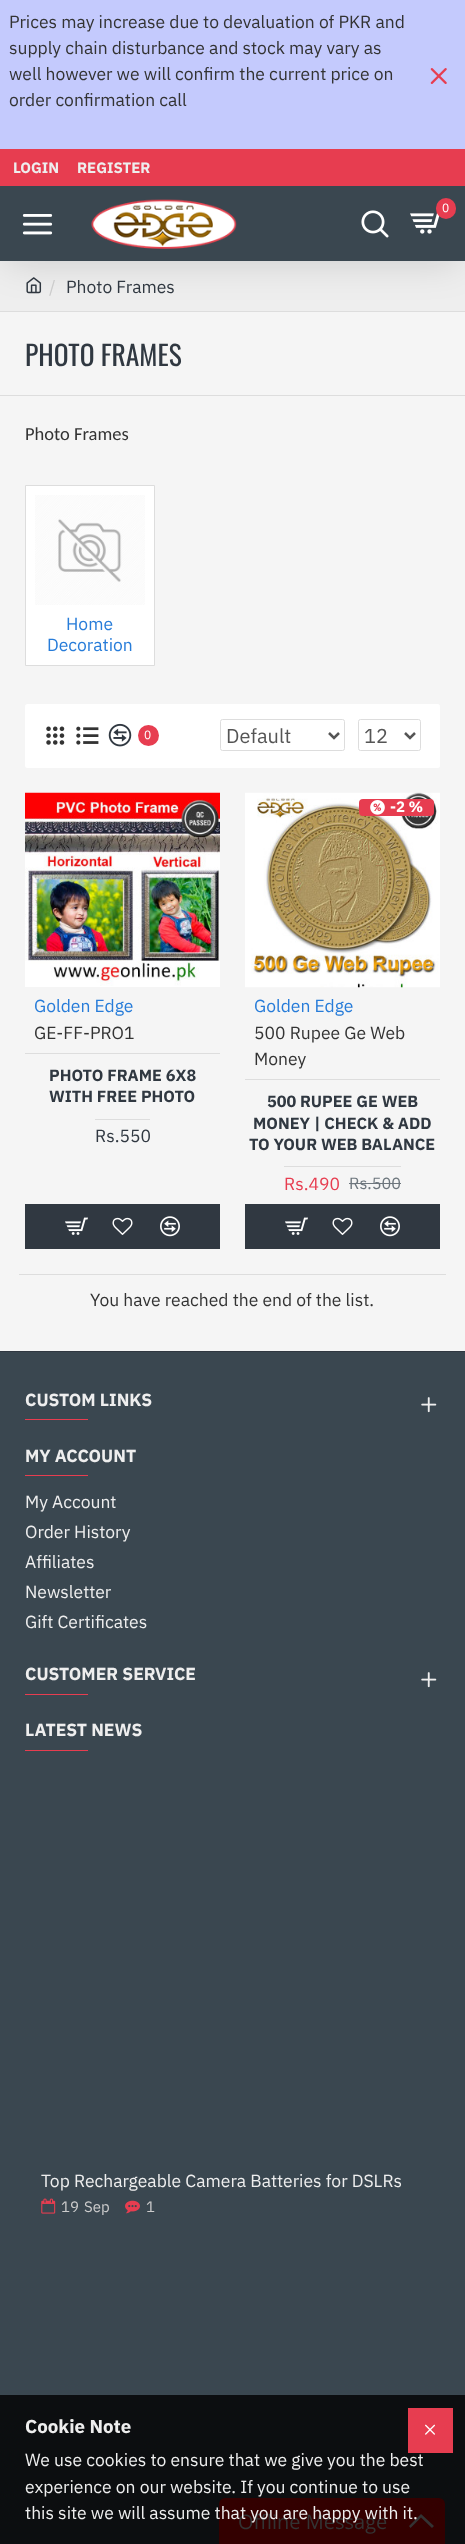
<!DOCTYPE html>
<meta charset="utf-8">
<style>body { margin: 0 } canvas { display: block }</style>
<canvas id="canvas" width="465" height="2544"></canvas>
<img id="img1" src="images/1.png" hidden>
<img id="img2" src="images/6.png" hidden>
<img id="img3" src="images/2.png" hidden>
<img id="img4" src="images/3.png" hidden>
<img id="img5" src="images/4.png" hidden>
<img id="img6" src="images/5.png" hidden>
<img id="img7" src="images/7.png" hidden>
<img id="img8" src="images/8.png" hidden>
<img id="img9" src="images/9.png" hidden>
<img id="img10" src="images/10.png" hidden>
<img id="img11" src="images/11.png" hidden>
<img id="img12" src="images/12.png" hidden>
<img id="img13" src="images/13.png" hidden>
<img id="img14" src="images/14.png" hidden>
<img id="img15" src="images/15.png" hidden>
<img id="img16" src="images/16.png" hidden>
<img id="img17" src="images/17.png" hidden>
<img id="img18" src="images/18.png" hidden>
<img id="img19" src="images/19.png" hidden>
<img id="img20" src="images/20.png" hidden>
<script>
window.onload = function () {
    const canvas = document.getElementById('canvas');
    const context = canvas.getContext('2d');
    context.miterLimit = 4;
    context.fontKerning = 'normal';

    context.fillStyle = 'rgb(245, 245, 245)';
    context.fillRect(0, 0, 465, 2544);
    context.fillStyle = 'rgb(196, 202, 253)';
    context.fillRect(0, 0, 465, 149);
    context.drawImage(document.getElementById('img1'), 430, 68, 17, 16);
    context.fillStyle = 'rgb(238, 238, 238)';
    context.fillRect(0, 261, 465, 50);
    context.fillStyle = 'rgb(221, 221, 221)';
    context.fillRect(0, 311, 465, 1);
    context.drawImage(document.getElementById('img2'), 26, 277, 16, 17);
    context.fillStyle = 'rgba(0, 0, 0, 0.15)';
    context.filter = 'blur(19px)';
    context.beginPath();
    context.rect(6, 199, 453, 62);
    context.fill();
    context.filter = 'none';
    context.fillStyle = 'rgb(231, 61, 80)';
    context.fillRect(0, 149, 465, 37);
    context.fillStyle = 'rgb(58, 71, 80)';
    context.fillRect(0, 186, 465, 75);
    context.drawImage(document.getElementById('img3'), 91, 199, 146, 50);
    context.drawImage(document.getElementById('img4'), 410, 213, 30, 21);
    context.fillStyle = 'rgb(231, 61, 80)';
    context.beginPath();
    context.roundRect(436, 198, 20, 21, 10);
    context.fill();
    context.drawImage(document.getElementById('img5'), 22, 214, 31, 21);
    context.drawImage(document.getElementById('img6'), 361, 210, 28, 28);
    context.fillStyle = 'rgb(221, 221, 221)';
    context.fillRect(0, 395, 465, 1);
    context.fillStyle = 'rgb(255, 255, 255)';
    context.beginPath();
    context.rect(25.5, 485.5, 129, 180);
    context.fill();
    context.strokeStyle = 'rgb(221, 221, 221)';
    context.stroke();
    context.drawImage(document.getElementById('img7'), 35, 495, 110, 110);
    context.beginPath();
    context.roundRect(25, 704, 415, 64, 2.5);
    context.fill();
    context.drawImage(document.getElementById('img8'), 46, 726, 19, 19);
    context.drawImage(document.getElementById('img9'), 76, 726, 23, 19);
    context.drawImage(document.getElementById('img10'), 108, 723, 24, 24);
    context.fillStyle = 'rgb(231, 61, 80)';
    context.beginPath();
    context.arc(148.5, 735.5, 10.5, 0, 2 * Math.PI);
    context.fill();
    context.beginPath();
    context.roundRect(220.5, 719.5, 124, 31, 2);
    context.stroke();
    context.beginPath();
    context.moveTo(329, 733);
    context.lineTo(334, 738);
    context.lineTo(339, 733);
    context.strokeStyle = 'rgb(85, 85, 85)';
    context.lineWidth = 2.5;
    context.stroke();
    context.beginPath();
    context.roundRect(358.5, 719.5, 62, 31, 2);
    context.strokeStyle = 'rgb(221, 221, 221)';
    context.lineWidth = 1;
    context.stroke();
    context.beginPath();
    context.moveTo(405, 733);
    context.lineTo(410, 738);
    context.lineTo(415, 733);
    context.strokeStyle = 'rgb(85, 85, 85)';
    context.lineWidth = 2.5;
    context.stroke();
    context.drawImage(document.getElementById('img11'), 25, 792, 195, 195);
    context.fillStyle = 'rgb(221, 221, 221)';
    context.fillRect(25, 1053, 195, 1);
    context.fillRect(95, 1119, 55, 1);
    context.fillStyle = 'rgb(48, 56, 65)';
    context.fillRect(25, 1204, 195, 45);
    context.drawImage(document.getElementById('img12'), 65, 1217, 23, 18);
    context.drawImage(document.getElementById('img13'), 112, 1217, 21, 18);
    context.drawImage(document.getElementById('img14'), 160, 1216, 20, 21);
    context.drawImage(document.getElementById('img15'), 245, 792, 195, 196);
    context.fillStyle = 'rgb(231, 61, 80)';
    context.beginPath();
    context.roundRect(359, 799, 75, 17, 4);
    context.fill();
    context.drawImage(document.getElementById('img16'), 370, 800, 15, 15);
    context.fillStyle = 'rgb(221, 221, 221)';
    context.fillRect(245, 1079, 195, 1);
    context.fillRect(284, 1166, 117, 1);
    context.fillStyle = 'rgb(109, 118, 125)';
    context.fillRect(349, 1183, 52, 1);
    context.fillStyle = 'rgb(48, 56, 65)';
    context.fillRect(245, 1204, 195, 45);
    context.drawImage(document.getElementById('img12'), 285, 1217, 23, 18);
    context.drawImage(document.getElementById('img13'), 332, 1217, 21, 18);
    context.drawImage(document.getElementById('img14'), 380, 1216, 20, 21);
    context.fillStyle = 'rgb(221, 221, 221)';
    context.fillRect(19, 1274, 427, 1);
    context.fillStyle = 'rgb(58, 71, 80)';
    context.fillRect(0, 1352, 465, 1043);
    context.fillStyle = 'rgb(12, 14, 16)';
    context.fillRect(0, 2395, 465, 149);
    context.fillStyle = 'rgb(48, 56, 65)';
    context.fillRect(0, 1351, 465, 1);
    context.drawImage(document.getElementById('img17'), 421, 1397, 16, 16);
    context.fillStyle = 'rgb(231, 61, 80)';
    context.fillRect(25, 1419, 63, 1);
    context.fillRect(25, 1475, 63, 1);
    context.drawImage(document.getElementById('img17'), 421, 1672, 16, 16);
    context.fillRect(25, 1694, 63, 1);
    context.fillRect(25, 1750, 63, 1);
    context.drawImage(document.getElementById('img18'), 41, 2198, 15, 16);
    context.drawImage(document.getElementById('img19'), 125, 2200, 15, 14);
    context.fillRect(408, 2408, 45, 45);
    context.drawImage(document.getElementById('img20'), 425, 2424, 10, 11);
    context.fillStyle = 'rgb(51, 0, 0)';
    context.beginPath();
    context.moveTo(225, 2499.5);
    context.lineTo(439, 2499.5);
    context.bezierCurveTo(441.5, 2499.5, 443.5, 2501.5, 443.5, 2504);
    context.lineTo(443.5, 2543.5);
    context.lineTo(220.5, 2543.5);
    context.lineTo(220.5, 2504);
    context.bezierCurveTo(220.5, 2501.5, 222.5, 2499.5, 225, 2499.5);
    context.closePath();
    context.fill();
    context.strokeStyle = 'rgb(51, 0, 0)';
    context.lineWidth = 3;
    context.stroke();
    context.fillStyle = 'rgb(51, 51, 51)';
    context.beginPath();
    context.moveTo(421, 2514);
    context.lineTo(434, 2526);
    context.lineTo(432, 2528);
    context.lineTo(421, 2517.5);
    context.lineTo(410.5, 2528);
    context.lineTo(409, 2526);
    context.closePath();
    context.fill();
    context.font = '17.5px IBM Plex Sans';
    context.fillText('Prices may increase due to devaluation of PKR and', 9, 28);
    context.fillText('supply chain disturbance and stock may vary as', 9, 54);
    context.fillText('well however we will confirm the current price on', 9, 80);
    context.fillText('order confirmation call', 9, 106);
    context.font = 'bold 15px IBM Plex Sans';
    context.fillStyle = 'rgb(238, 238, 238)';
    context.fillText('LOGIN', 13, 173);
    context.fillText('REGISTER', 77, 173);
    context.font = '12px IBM Plex Sans';
    context.fillStyle = 'rgb(255, 255, 255)';
    context.fillText('0', 442, 212);
    context.font = '17.5px IBM Plex Sans';
    context.fillStyle = 'rgb(204, 204, 204)';
    context.fillText('/', 49, 293);
    context.fillStyle = 'rgb(48, 56, 65)';
    context.fillText('Photo Frames', 66, 293);
    context.font = '27.5px Oswald';
    context.fillText('PHOTO FRAMES', 25, 366);
    context.font = '18.5px Carlito';
    context.fillStyle = 'rgb(51, 51, 51)';
    context.fillText('Photo Frames', 25, 440);
    context.font = '17.5px IBM Plex Sans';
    context.fillStyle = 'rgb(39, 124, 217)';
    context.fillText('Home', 66, 630);
    context.fillText('Decoration', 47, 651);
    context.font = '12px IBM Plex Sans';
    context.fillStyle = 'rgb(255, 255, 255)';
    context.fillText('0', 144, 739);
    context.font = '20px IBM Plex Sans';
    context.fillStyle = 'rgb(85, 85, 85)';
    context.fillText('Default', 226, 743);
    context.fillText('12', 364, 743);
    context.font = '17.5px IBM Plex Sans';
    context.fillStyle = 'rgb(39, 124, 217)';
    context.fillText('Golden Edge', 34, 1012);
    context.fillStyle = 'rgb(51, 51, 51)';
    context.fillText('GE-FF-PRO1', 34, 1039);
    context.font = 'bold 16.25px IBM Plex Sans';
    context.fillStyle = 'rgb(48, 56, 65)';
    context.fillText('PHOTO FRAME 6X8', 49, 1081);
    context.fillText('WITH FREE PHOTO', 49, 1102);
    context.font = '17.5px IBM Plex Sans';
    context.fillText('Rs.550', 95, 1142);
    context.font = 'bold 15px IBM Plex Sans';
    context.fillStyle = 'rgb(255, 255, 255)';
    context.fillText('-2 %', 390, 812);
    context.font = '17.5px IBM Plex Sans';
    context.fillStyle = 'rgb(39, 124, 217)';
    context.fillText('Golden Edge', 254, 1012);
    context.fillStyle = 'rgb(51, 51, 51)';
    context.fillText('500 Rupee Ge Web', 254, 1039);
    context.fillText('Money', 254, 1065);
    context.font = 'bold 16.25px IBM Plex Sans';
    context.fillStyle = 'rgb(48, 56, 65)';
    context.fillText('500 RUPEE GE WEB', 267, 1107);
    context.fillText('MONEY | CHECK & ADD', 253, 1129);
    context.fillText('TO YOUR WEB BALANCE', 249, 1150);
    context.font = '17.5px IBM Plex Sans';
    context.fillStyle = 'rgb(231, 61, 80)';
    context.fillText('Rs.490', 284, 1190);
    context.font = '16.25px IBM Plex Sans';
    context.fillStyle = 'rgb(109, 118, 125)';
    context.fillText('Rs.500', 349, 1189);
    context.font = '17.5px IBM Plex Sans';
    context.fillStyle = 'rgb(51, 51, 51)';
    context.fillText('You have reached the end of the list.', 90, 1306);
    context.font = 'bold 17.5px IBM Plex Sans';
    context.fillStyle = 'rgb(238, 238, 238)';
    context.fillText('CUSTOM LINKS', 25, 1406);
    context.fillText('MY ACCOUNT', 25, 1462);
    context.font = '17.5px IBM Plex Sans';
    context.fillText('My Account', 25, 1508);
    context.fillText('Order History', 25, 1538);
    context.fillText('Affiliates', 25, 1568);
    context.fillText('Newsletter', 25, 1598);
    context.fillText('Gift Certificates', 25, 1628);
    context.font = 'bold 17.5px IBM Plex Sans';
    context.fillText('CUSTOMER SERVICE', 25, 1680);
    context.fillText('LATEST NEWS', 25, 1736);
    context.font = '17.5px IBM Plex Sans';
    context.fillText('Top Rechargeable Camera Batteries for DSLRs', 41, 2187);
    context.font = '15px IBM Plex Sans';
    context.fillStyle = 'rgb(204, 204, 204)';
    context.fillText('19', 61, 2212);
    context.fillText('Sep', 84, 2212);
    context.fillText('1', 146, 2212);
    context.font = 'bold 18.75px IBM Plex Sans';
    context.fillStyle = 'rgb(238, 238, 238)';
    context.fillText('Cookie Note', 25, 2433);
    context.font = '17.5px IBM Plex Sans';
    context.fillText('We use cookies to ensure that we give you the best', 25, 2466);
    context.fillText('experience on our website. If you continue to use', 25, 2493);
    context.font = '20px Open Sans';
    context.fillStyle = 'rgb(51, 51, 51)';
    context.fillText('Offline Message', 238, 2529);
    context.font = '17.5px IBM Plex Sans';
    context.fillStyle = 'rgb(238, 238, 238)';
    context.fillText('this site we will assume that you are happy with it.', 25, 2519);
};
</script>
